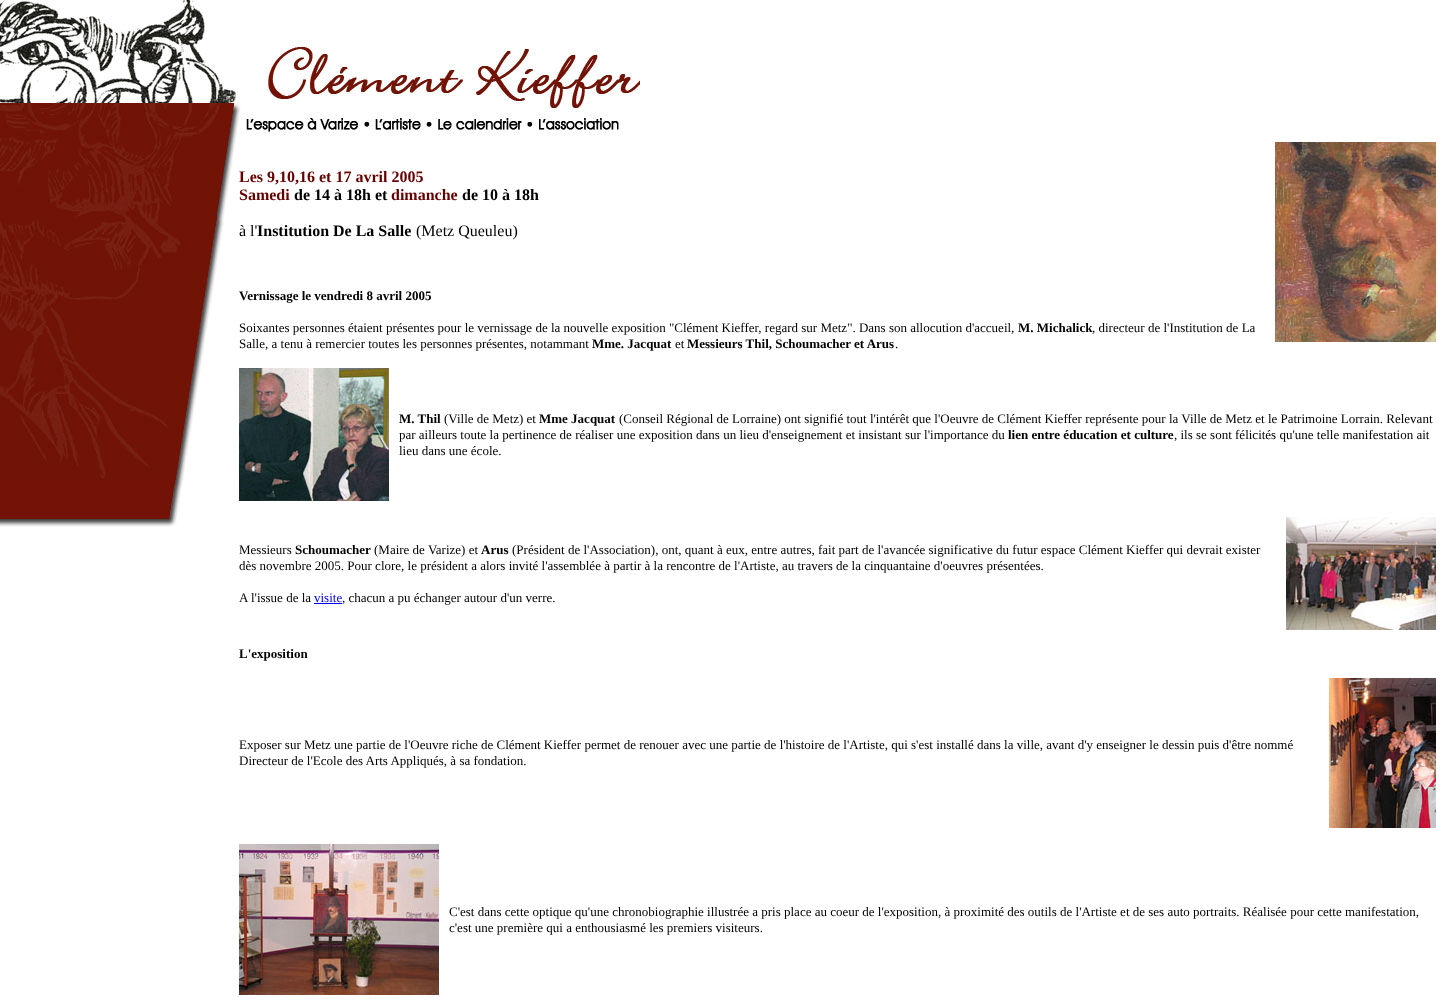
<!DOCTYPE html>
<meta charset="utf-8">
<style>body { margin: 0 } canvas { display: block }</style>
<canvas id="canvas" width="1451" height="1008"></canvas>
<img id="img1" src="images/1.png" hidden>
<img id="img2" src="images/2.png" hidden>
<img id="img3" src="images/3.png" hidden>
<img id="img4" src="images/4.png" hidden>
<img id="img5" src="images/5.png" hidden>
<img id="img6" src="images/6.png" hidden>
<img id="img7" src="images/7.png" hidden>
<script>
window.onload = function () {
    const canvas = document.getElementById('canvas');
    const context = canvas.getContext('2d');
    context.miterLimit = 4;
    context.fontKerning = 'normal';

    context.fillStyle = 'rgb(255, 255, 255)';
    context.fillRect(0, 0, 1451, 1008);
    context.drawImage(document.getElementById('img1'), 0, 0, 640, 527);
    context.drawImage(document.getElementById('img2'), 24, 128, 599, 4);
    context.drawImage(document.getElementById('img3'), 1275, 142, 161, 200);
    context.drawImage(document.getElementById('img4'), 239, 368, 150, 133);
    context.fillStyle = 'rgb(0, 0, 238)';
    context.fillRect(314, 603, 28, 1);
    context.drawImage(document.getElementById('img5'), 1286, 517, 150, 113);
    context.drawImage(document.getElementById('img6'), 1329, 678, 107, 150);
    context.drawImage(document.getElementById('img7'), 239, 844, 200, 151);
    context.font = 'bold 16px Liberation Serif';
    context.fillStyle = 'rgb(102, 0, 0)';
    context.fillText('Les 9,10,16 et 17 avril 2005', 239, 182);
    context.fillText('Samedi', 239, 200);
    context.fillStyle = 'rgb(0, 0, 0)';
    context.fillText('de 14 à 18h et', 294, 200);
    context.fillStyle = 'rgb(102, 0, 0)';
    context.fillText('dimanche', 391, 200);
    context.fillStyle = 'rgb(0, 0, 0)';
    context.fillText('de 10 à 18h', 462, 200);
    context.font = '16px Liberation Serif';
    context.fillText('à l\'', 239, 236);
    context.font = 'bold 16px Liberation Serif';
    context.fillText('Institution De La Salle', 257, 236);
    context.font = '16px Liberation Serif';
    context.fillText('(Metz Queuleu)', 416, 236);
    context.font = 'bold 13px Liberation Serif';
    context.fillText('Vernissage le vendredi 8 avril 2005', 239, 300);
    context.font = '13px Liberation Serif';
    context.fillText('Soixantes personnes étaient présentes pour le vernissage de la nouvelle exposition "Clément Kieffer, regard sur Metz". Dans son allocution d\'accueil,', 239, 332);
    context.font = 'bold 13px Liberation Serif';
    context.fillText('M. Michalick', 1018, 332);
    context.font = '13px Liberation Serif';
    context.fillText(', directeur de l\'Institution de La', 1092, 332);
    context.fillText('Salle, a tenu à remercier toutes les personnes présentes, notammant', 239, 348);
    context.font = 'bold 13px Liberation Serif';
    context.fillText('Mme. Jacquat', 592, 348);
    context.font = '13px Liberation Serif';
    context.fillText('et', 675, 348);
    context.font = 'bold 13px Liberation Serif';
    context.fillText('Messieurs Thil, Schoumacher et Arus', 687, 348);
    context.font = '13px Liberation Serif';
    context.fillText('.', 895, 348);
    context.font = 'bold 13px Liberation Serif';
    context.fillText('M. Thil', 399, 423);
    context.font = '13px Liberation Serif';
    context.fillText('(Ville de Metz) et', 444, 423);
    context.font = 'bold 13px Liberation Serif';
    context.fillText('Mme Jacquat', 539, 423);
    context.font = '13px Liberation Serif';
    context.fillText('(Conseil Régional de Lorraine) ont signifié tout l\'intérêt que l\'Oeuvre de Clément Kieffer représente pour la Ville de Metz et le Patrimoine Lorrain. Relevant', 619, 423);
    context.fillText('par ailleurs toute la pertinence de réaliser une exposition dans un lieu d\'enseignement et insistant sur l\'importance du', 399, 439);
    context.font = 'bold 13px Liberation Serif';
    context.fillText('lien entre éducation et culture', 1008, 439);
    context.font = '13px Liberation Serif';
    context.fillText(', ils se sont félicités qu\'une telle manifestation ait', 1174, 439);
    context.fillText('lieu dans une école.', 399, 455);
    context.fillText('Messieurs', 239, 554);
    context.font = 'bold 13px Liberation Serif';
    context.fillText('Schoumacher', 295, 554);
    context.font = '13px Liberation Serif';
    context.fillText('(Maire de Varize) et', 374, 554);
    context.font = 'bold 13px Liberation Serif';
    context.fillText('Arus', 481, 554);
    context.font = '13px Liberation Serif';
    context.fillText('(Président de l\'Association), ont, quant à eux, entre autres, fait part de l\'avancée significative du futur espace Clément Kieffer qui devrait exister', 512, 554);
    context.fillText('dès novembre 2005. Pour clore, le président a alors invité l\'assemblée à partir à la rencontre de l\'Artiste, au travers de la cinquantaine d\'oeuvres présentées.', 239, 570);
    context.fillText('A l\'issue de la', 239, 602);
    context.fillStyle = 'rgb(0, 0, 238)';
    context.fillText('visite', 314, 602);
    context.fillStyle = 'rgb(0, 0, 0)';
    context.fillText(', chacun a pu échanger autour d\'un verre.', 342, 602);
    context.font = 'bold 13px Liberation Serif';
    context.fillText('L\'exposition', 239, 658);
    context.font = '13px Liberation Serif';
    context.fillText('Exposer sur Metz une partie de l\'Oeuvre riche de Clément Kieffer permet de renouer avec une partie de l\'histoire de l\'Artiste, qui s\'est installé dans la ville, avant d\'y enseigner le dessin puis d\'être nommé', 239, 749);
    context.fillText('Directeur de l\'Ecole des Arts Appliqués, à sa fondation.', 239, 765);
    context.fillText('C\'est dans cette optique qu\'une chronobiographie illustrée a pris place au coeur de l\'exposition, à proximité des outils de l\'Artiste et de ses auto portraits. Réalisée pour cette manifestation,', 449, 916);
    context.fillText('c\'est une première qui a enthousiasmé les premiers visiteurs.', 449, 932);
};
</script>
